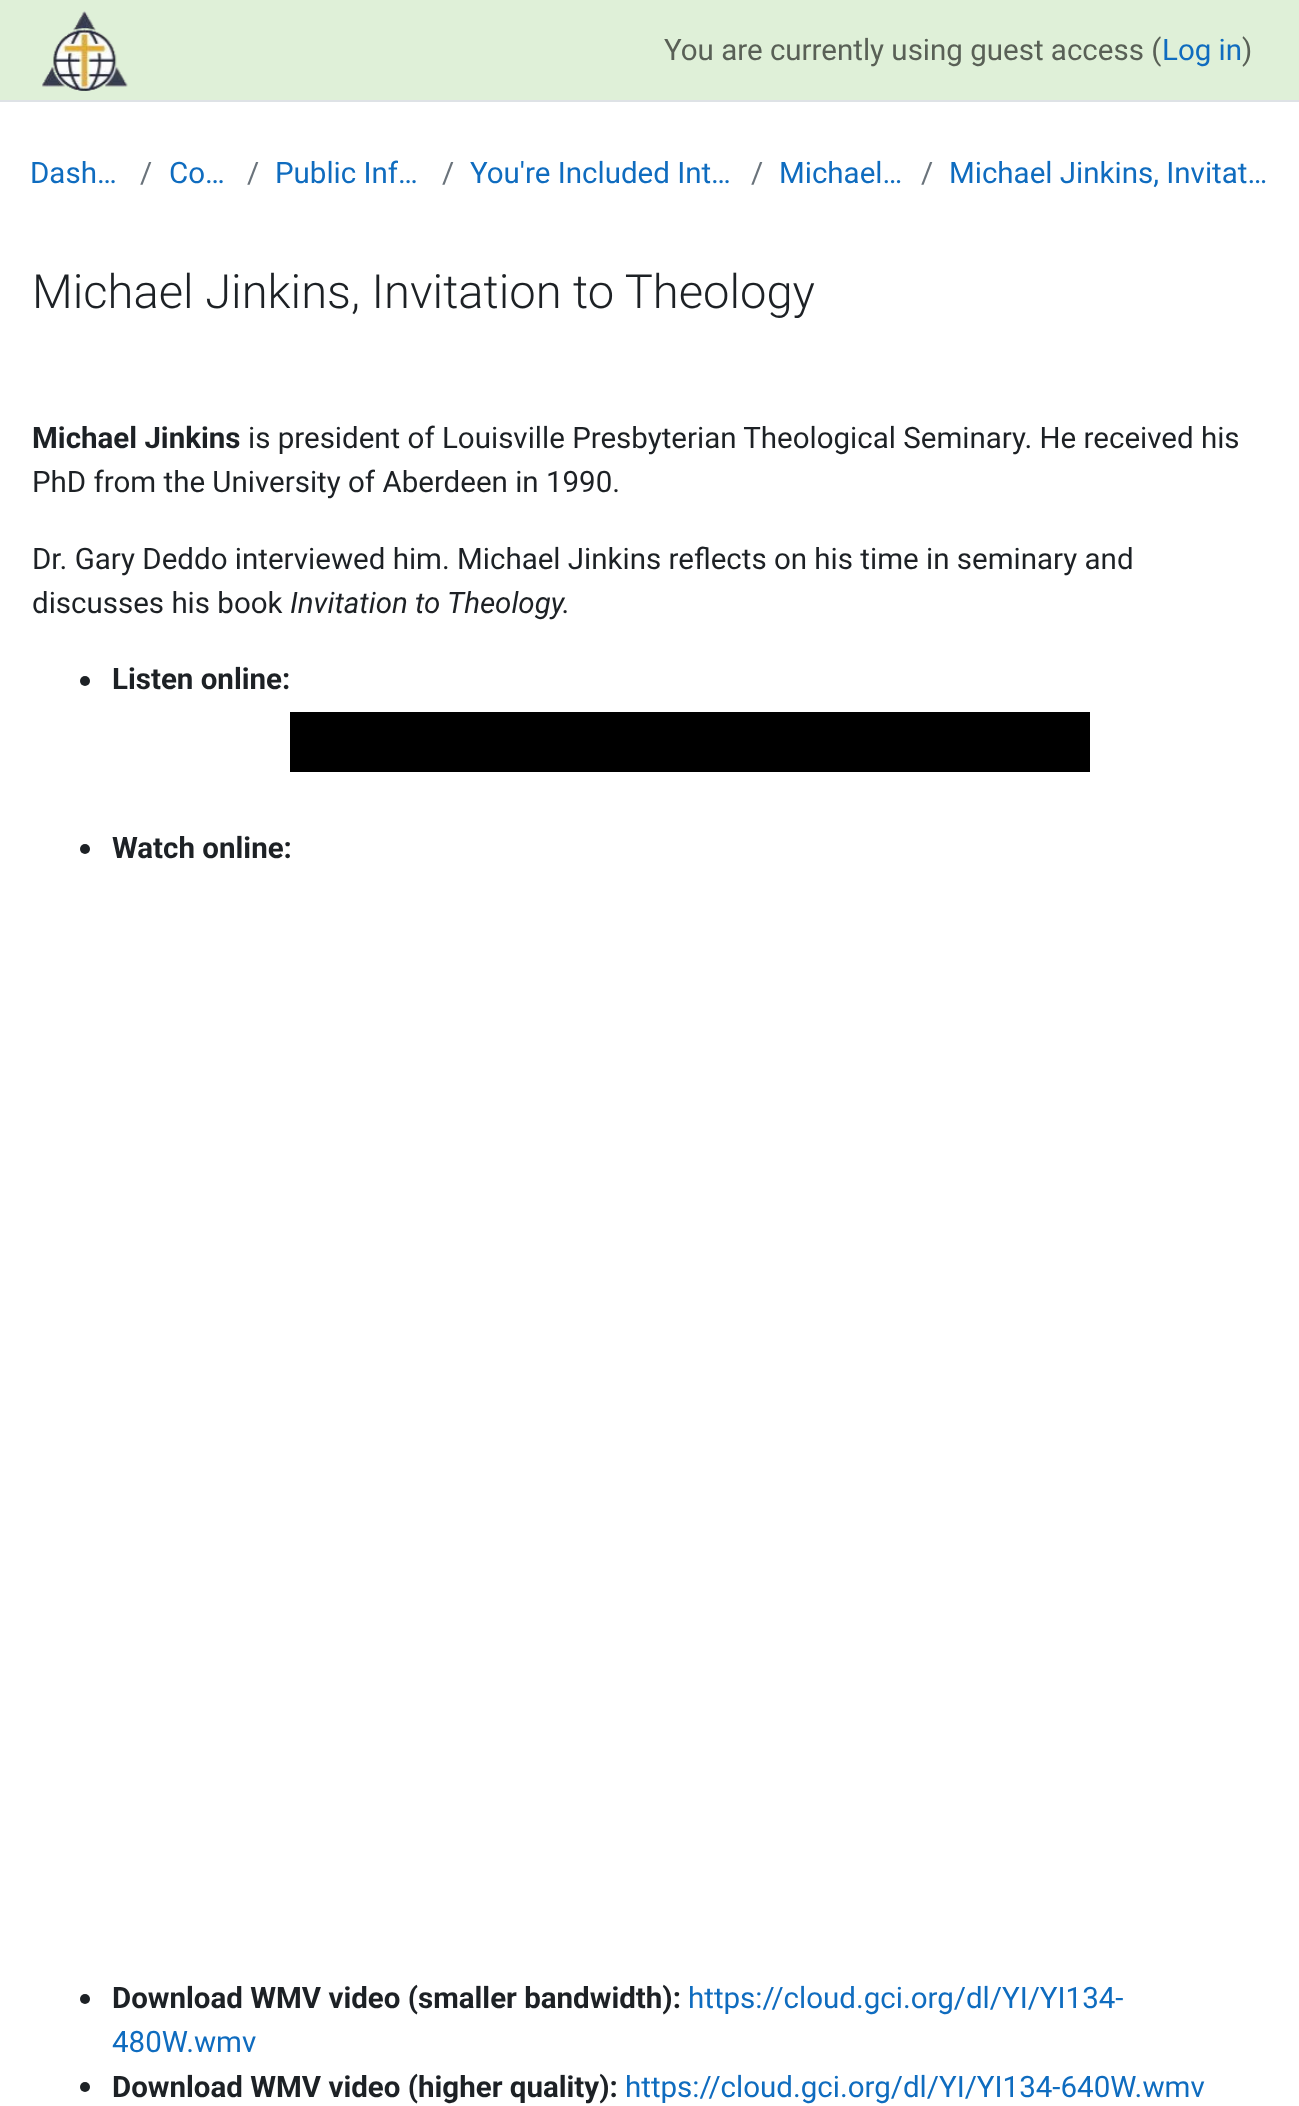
<!DOCTYPE html>
<meta charset="utf-8">
<style>body { margin: 0 } canvas { display: block }</style>
<canvas id="canvas" width="1299" height="2106"></canvas>
<img id="img1" src="images/1.png" hidden>
<script>
window.onload = function () {
    const canvas = document.getElementById('canvas');
    const context = canvas.getContext('2d');
    context.miterLimit = 4;
    context.fontKerning = 'normal';

    context.fillStyle = 'rgb(255, 255, 255)';
    context.fillRect(0, 0, 1299, 2106);
    context.fillStyle = 'rgb(223, 240, 216)';
    context.fillRect(0, 0, 1299, 100);
    context.fillStyle = 'rgb(222, 226, 230)';
    context.fillRect(0, 100, 1299, 2);
    context.drawImage(document.getElementById('img1'), 42, 11, 86, 80);
    context.fillStyle = 'rgb(29, 33, 37)';
    context.beginPath();
    context.arc(85, 681, 5, 0, 2 * Math.PI);
    context.fill();
    context.fillStyle = 'rgb(0, 0, 0)';
    context.fillRect(290, 712, 800, 60);
    context.fillStyle = 'rgb(29, 33, 37)';
    context.beginPath();
    context.arc(85, 849, 5, 0, 2 * Math.PI);
    context.fill();
    context.beginPath();
    context.arc(85, 1999, 5, 0, 2 * Math.PI);
    context.fill();
    context.beginPath();
    context.arc(85, 2087, 5, 0, 2 * Math.PI);
    context.fill();
    context.font = '29.5px Roboto';
    context.fillStyle = 'rgb(89, 96, 86)';
    context.fillText('You are currently using guest access (', 664, 60);
    context.fillStyle = 'rgb(15, 108, 191)';
    context.fillText('Log in', 1162, 60);
    context.fillStyle = 'rgb(89, 96, 86)';
    context.fillText(')', 1242, 60);
    context.fillStyle = 'rgb(15, 108, 191)';
    context.fillText('Dash…', 30, 183);
    context.fillStyle = 'rgb(106, 115, 123)';
    context.fillText('/', 140, 183);
    context.fillStyle = 'rgb(15, 108, 191)';
    context.fillText('Co…', 169, 183);
    context.fillStyle = 'rgb(106, 115, 123)';
    context.fillText('/', 247, 183);
    context.fillStyle = 'rgb(15, 108, 191)';
    context.fillText('Public Inf…', 275, 183);
    context.fillStyle = 'rgb(106, 115, 123)';
    context.fillText('/', 442, 183);
    context.fillStyle = 'rgb(15, 108, 191)';
    context.fillText('You\'re Included Int…', 470, 183);
    context.fillStyle = 'rgb(106, 115, 123)';
    context.fillText('/', 751, 183);
    context.fillStyle = 'rgb(15, 108, 191)';
    context.fillText('Michael…', 779, 183);
    context.fillStyle = 'rgb(106, 115, 123)';
    context.fillText('/', 921, 183);
    context.fillStyle = 'rgb(15, 108, 191)';
    context.fillText('Michael Jinkins, Invitat…', 949, 183);
    context.font = '300 47.1px Roboto';
    context.fillStyle = 'rgb(29, 33, 37)';
    context.fillText('Michael Jinkins, Invitation to Theology', 32, 308);
    context.font = 'bold 29.5px Roboto';
    context.fillText('Michael Jinkins', 32, 448);
    context.font = '29.5px Roboto';
    context.fillText('is president of Louisville Presbyterian Theological Seminary. He received his', 248, 448);
    context.fillText('PhD from the University of Aberdeen in 1990.', 32, 492);
    context.fillText('Dr. Gary Deddo interviewed him. Michael Jinkins reflects on his time in seminary and', 32, 569);
    context.fillText('discusses his book', 32, 613);
    context.font = 'italic 29.5px Roboto';
    context.fillText('Invitation to Theology.', 290, 613);
    context.font = 'bold 29.5px Roboto';
    context.fillText('Listen online:', 112, 689);
    context.fillText('Watch online:', 112, 858);
    context.fillText('Download WMV video (smaller bandwidth):', 112, 2008);
    context.font = '29.5px Roboto';
    context.fillStyle = 'rgb(15, 108, 191)';
    context.fillText('https://cloud.gci.org/dl/YI/YI134-', 688, 2008);
    context.fillText('480W.wmv', 112, 2052);
    context.font = 'bold 29.5px Roboto';
    context.fillStyle = 'rgb(29, 33, 37)';
    context.fillText('Download WMV video (higher quality):', 112, 2097);
    context.font = '29.5px Roboto';
    context.fillStyle = 'rgb(15, 108, 191)';
    context.fillText('https://cloud.gci.org/dl/YI/YI134-640W.wmv', 625, 2097);
};
</script>
